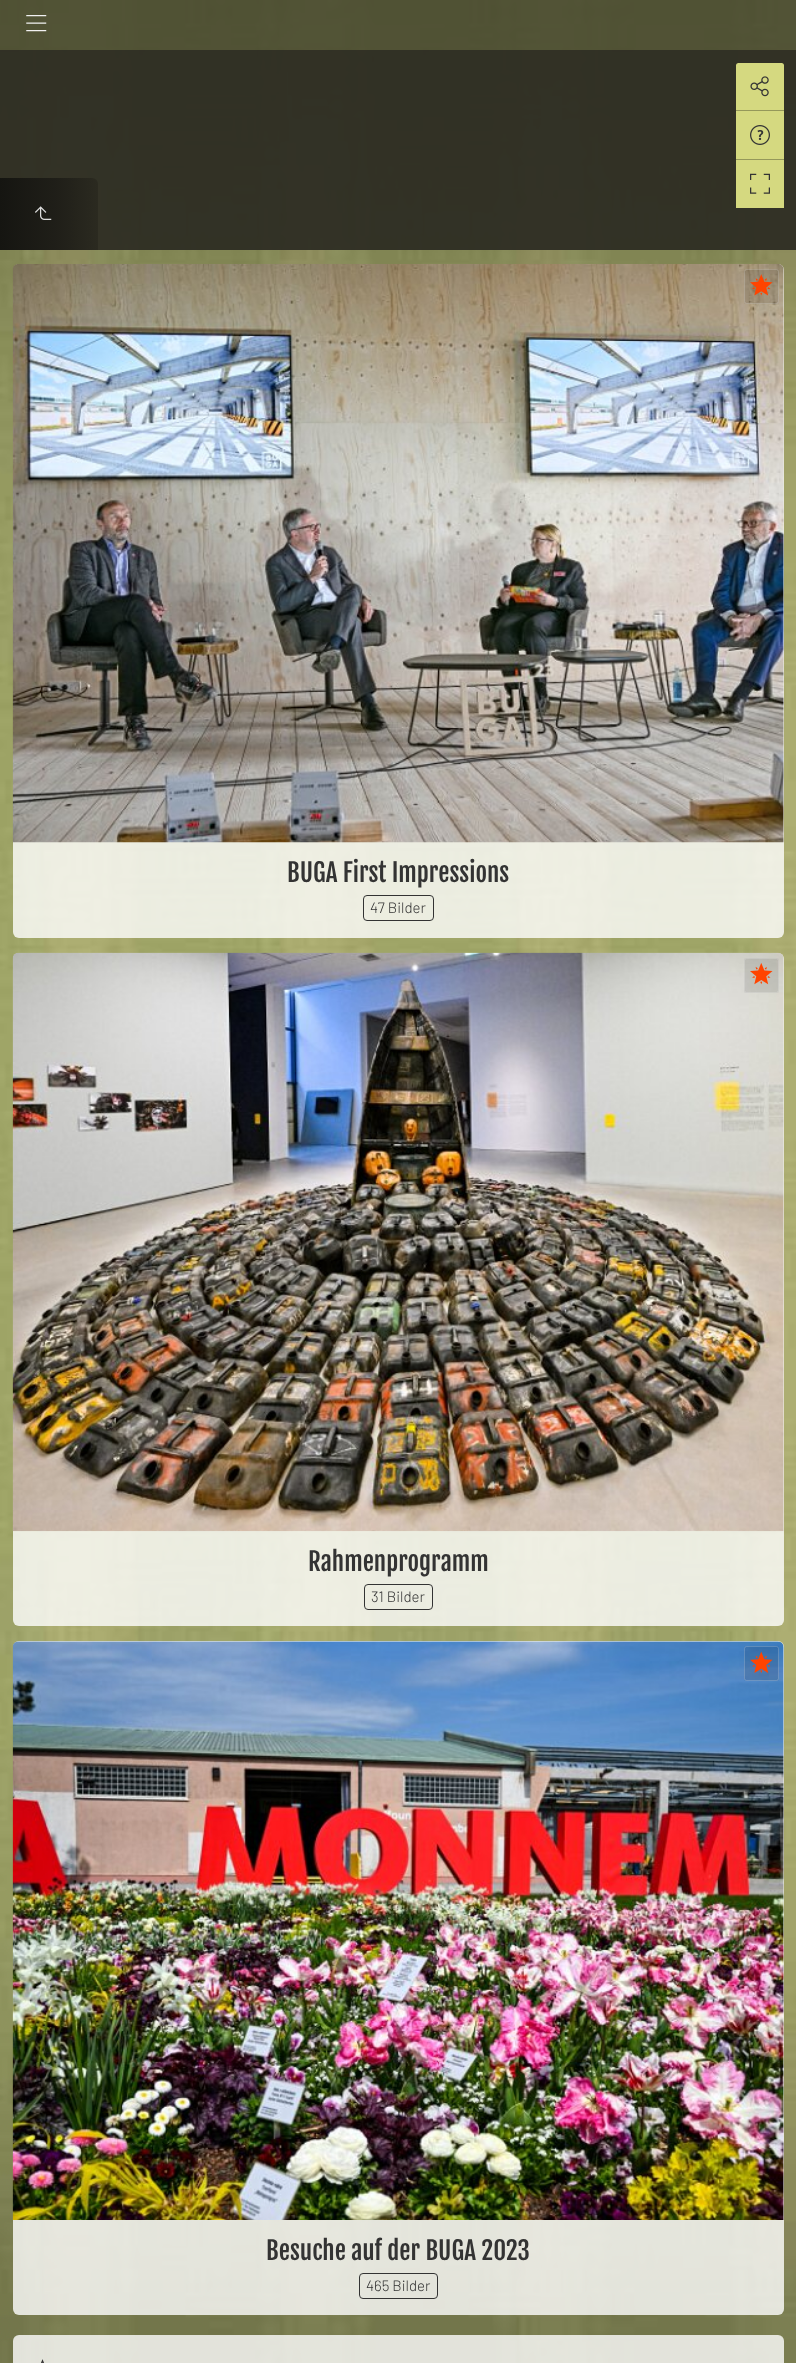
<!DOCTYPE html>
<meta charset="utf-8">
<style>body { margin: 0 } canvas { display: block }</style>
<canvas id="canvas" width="796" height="2363"></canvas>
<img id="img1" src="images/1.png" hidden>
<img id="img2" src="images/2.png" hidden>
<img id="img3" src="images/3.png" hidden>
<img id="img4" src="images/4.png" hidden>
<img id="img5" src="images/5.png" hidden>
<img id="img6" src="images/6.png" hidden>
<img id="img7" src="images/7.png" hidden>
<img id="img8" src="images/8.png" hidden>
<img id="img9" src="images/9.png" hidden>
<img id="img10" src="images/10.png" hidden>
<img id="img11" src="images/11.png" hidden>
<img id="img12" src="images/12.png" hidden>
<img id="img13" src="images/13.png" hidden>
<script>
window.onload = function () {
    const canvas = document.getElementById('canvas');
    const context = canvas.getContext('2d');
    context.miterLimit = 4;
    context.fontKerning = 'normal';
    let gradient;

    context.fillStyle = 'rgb(255, 255, 255)';
    context.fillRect(0, 0, 796, 2363);
    context.drawImage(document.getElementById('img1'), 0, 0, 796, 2363);
    context.fillStyle = 'rgba(72, 74, 47, 0.8)';
    context.fillRect(0, 0, 796, 50);
    context.drawImage(document.getElementById('img2'), 26, 15, 21, 17);
    context.fillRect(0, 50, 796, 200);
    context.fillStyle = 'rgba(35, 33, 30, 0.67)';
    context.fillRect(0, 50, 796, 200);
    gradient = context.createLinearGradient(0, 214, 98, 214);
    gradient.addColorStop(0, 'rgb(21, 21, 17)');
    gradient.addColorStop(0.6, 'rgb(32, 31, 25)');
    gradient.addColorStop(1, 'rgb(43, 42, 32)');
    context.fillStyle = gradient;
    context.beginPath();
    context.roundRect(0, 178, 98, 72, [0, 6, 0, 0]);
    context.fill();
    context.drawImage(document.getElementById('img3'), 35, 206, 17, 14);
    context.fillStyle = 'rgb(213, 217, 128)';
    context.beginPath();
    context.roundRect(736, 63, 48, 47, [2.5, 2.5, 0, 0]);
    context.fill();
    context.drawImage(document.getElementById('img4'), 750, 76, 19, 21);
    context.fillRect(736, 111, 48, 48);
    context.fillStyle = 'rgb(149, 152, 90)';
    context.fillRect(736, 110, 48, 1);
    context.drawImage(document.getElementById('img5'), 750, 125, 20, 20);
    context.fillStyle = 'rgb(213, 217, 128)';
    context.fillRect(736, 160, 48, 48);
    context.fillStyle = 'rgb(149, 152, 90)';
    context.fillRect(736, 159, 48, 1);
    context.drawImage(document.getElementById('img6'), 750, 173, 20, 21);
    context.fillStyle = 'rgba(255, 255, 255, 0.8)';
    context.beginPath();
    context.roundRect(13, 264, 771, 674, 6);
    context.fill();
    context.drawImage(document.getElementById('img7'), 12, 264, 772, 579);
    context.fillStyle = 'rgba(0, 0, 0, 0.1)';
    context.beginPath();
    context.roundRect(744, 269, 35, 35, 2.5);
    context.fill();
    context.beginPath();
    context.roundRect(744.5, 269.5, 34, 34, 2);
    context.strokeStyle = 'rgba(255, 255, 255, 0.2)';
    context.stroke();
    context.drawImage(document.getElementById('img8'), 750, 274, 23, 22);
    context.beginPath();
    context.roundRect(363.5, 895.5, 70, 25, 3.5);
    context.strokeStyle = 'rgb(51, 51, 51)';
    context.stroke();
    context.fillStyle = 'rgba(255, 255, 255, 0.8)';
    context.beginPath();
    context.roundRect(13, 953, 771, 673, 6);
    context.fill();
    context.drawImage(document.getElementById('img9'), 12, 952, 772, 580);
    context.fillStyle = 'rgba(0, 0, 0, 0.1)';
    context.beginPath();
    context.roundRect(744, 958, 35, 35, 2.5);
    context.fill();
    context.beginPath();
    context.roundRect(744.5, 958.5, 34, 34, 2);
    context.strokeStyle = 'rgba(255, 255, 255, 0.2)';
    context.stroke();
    context.drawImage(document.getElementById('img10'), 750, 963, 23, 22);
    context.beginPath();
    context.roundRect(364.5, 1584.5, 68, 25, 3.5);
    context.strokeStyle = 'rgb(51, 51, 51)';
    context.stroke();
    context.fillStyle = 'rgba(255, 255, 255, 0.8)';
    context.beginPath();
    context.roundRect(13, 1641, 771, 674, 6);
    context.fill();
    context.drawImage(document.getElementById('img11'), 12, 1641, 772, 579);
    context.fillStyle = 'rgba(0, 0, 0, 0.1)';
    context.beginPath();
    context.roundRect(744, 1646, 35, 35, 2.5);
    context.fill();
    context.beginPath();
    context.roundRect(744.5, 1646.5, 34, 34, 2);
    context.strokeStyle = 'rgba(255, 255, 255, 0.2)';
    context.stroke();
    context.drawImage(document.getElementById('img12'), 750, 1651, 23, 22);
    context.beginPath();
    context.roundRect(359.5, 2273.5, 78, 25, 3.5);
    context.strokeStyle = 'rgb(51, 51, 51)';
    context.stroke();
    context.fillStyle = 'rgba(255, 255, 255, 0.8)';
    context.beginPath();
    context.roundRect(13, 2335, 771, 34, 6);
    context.fill();
    context.drawImage(document.getElementById('img13'), 41, 2359, 3, 4);
    context.font = '25px Fjalla One';
    context.fillStyle = 'rgb(51, 51, 51)';
    context.fillText('BUGA First Impressions', 287, 882);
    context.font = '300 15px Barlow';
    context.fillText('47 Bilder', 370, 913);
    context.font = '25px Fjalla One';
    context.fillText('Rahmenprogramm', 308, 1571);
    context.font = '300 15px Barlow';
    context.fillText('31 Bilder', 371, 1602);
    context.font = '25px Fjalla One';
    context.fillText('Besuche auf der BUGA 2023', 266, 2260);
    context.font = '300 15px Barlow';
    context.fillText('465 Bilder', 366, 2291);
};
</script>
